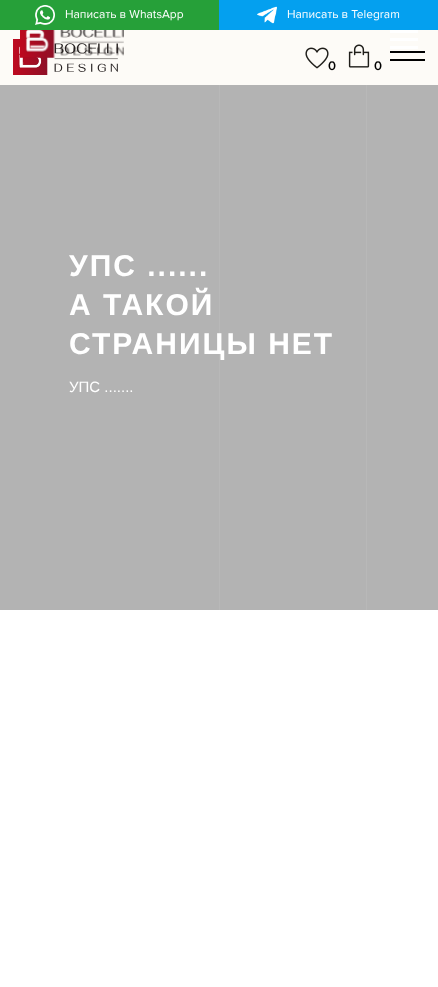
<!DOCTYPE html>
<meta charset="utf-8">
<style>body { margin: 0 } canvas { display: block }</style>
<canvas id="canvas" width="438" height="987"></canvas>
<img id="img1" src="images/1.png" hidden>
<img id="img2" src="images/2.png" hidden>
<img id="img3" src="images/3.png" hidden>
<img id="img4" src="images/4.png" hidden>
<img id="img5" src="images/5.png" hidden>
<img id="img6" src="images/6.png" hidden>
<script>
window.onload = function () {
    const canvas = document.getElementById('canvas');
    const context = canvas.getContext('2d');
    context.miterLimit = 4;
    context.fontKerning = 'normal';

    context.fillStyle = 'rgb(255, 255, 255)';
    context.fillRect(0, 0, 438, 987);
    context.fillStyle = 'rgb(38, 160, 57)';
    context.fillRect(0, 0, 219, 30);
    context.drawImage(document.getElementById('img1'), 35, 5, 20, 20);
    context.fillStyle = 'rgb(4, 160, 239)';
    context.fillRect(219, 0, 219, 30);
    context.drawImage(document.getElementById('img2'), 257, 6, 20, 18);
    context.fillStyle = 'rgb(253, 251, 247)';
    context.fillRect(0, 30, 438, 55);
    context.drawImage(document.getElementById('img3'), 13, 39, 105, 36);
    context.drawImage(document.getElementById('img4'), 305, 47, 24, 22);
    context.drawImage(document.getElementById('img5'), 348, 44, 22, 24);
    context.fillStyle = 'rgb(0, 0, 0)';
    context.fillRect(390, 51, 35, 2);
    context.fillRect(390, 59, 35, 2);
    context.drawImage(document.getElementById('img6'), 20, 30, 104, 28);
    context.fillStyle = 'rgb(255, 255, 255)';
    context.fillRect(390, 30, 28, 3);
    context.fillRect(390, 38, 28, 3);
    context.fillRect(390, 46, 28, 3);
    context.fillStyle = 'rgb(179, 179, 179)';
    context.fillRect(0, 85, 438, 525);
    context.fillStyle = 'rgb(184, 184, 184)';
    context.fillRect(219, 85, 1, 525);
    context.fillRect(366, 85, 1, 525);
    context.font = '12px Proxima Nova';
    context.fillStyle = 'rgb(255, 255, 255)';
    context.fillText('Написать в WhatsApp', 65, 18);
    context.fillText('Написать в Telegram', 287, 18);
    context.font = '600 13px Proxima Nova';
    context.fillStyle = 'rgb(0, 0, 0)';
    context.fillText('0', 328, 70);
    context.fillText('0', 374, 70);
    context.letterSpacing = '2px';
    context.font = 'bold 30px Liberation Sans';
    context.fillStyle = 'rgb(255, 255, 255)';
    context.fillText('УПС ......', 69, 276);
    context.fillText('А ТАКОЙ', 69, 315);
    context.fillText('СТРАНИЦЫ НЕТ', 69, 354);
    context.letterSpacing = '0px';
    context.font = '15px Liberation Sans';
    context.fillText('УПС .......', 69, 392);
};
</script>
